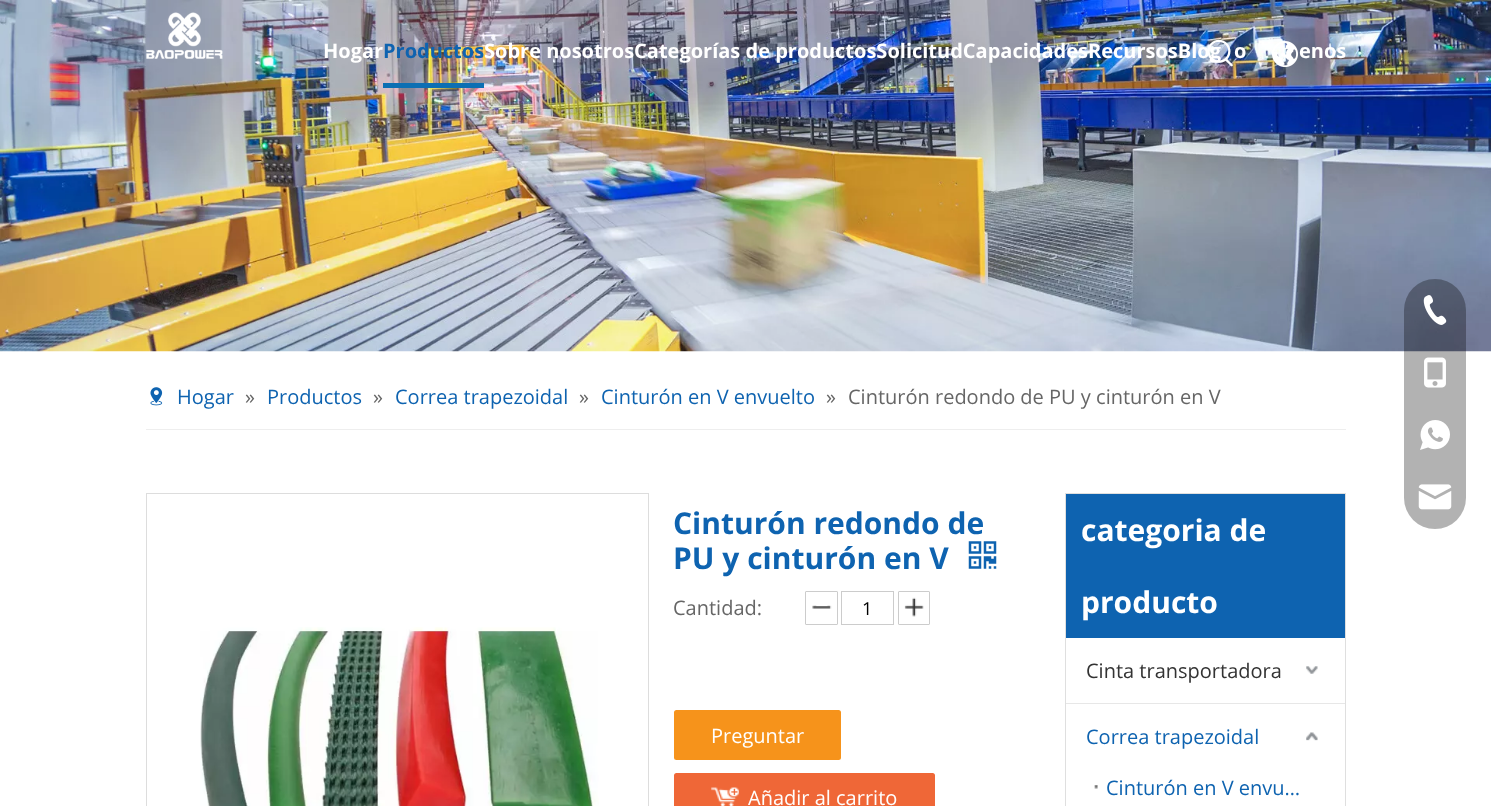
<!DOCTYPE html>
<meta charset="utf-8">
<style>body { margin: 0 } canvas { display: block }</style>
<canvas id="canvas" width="1491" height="806"></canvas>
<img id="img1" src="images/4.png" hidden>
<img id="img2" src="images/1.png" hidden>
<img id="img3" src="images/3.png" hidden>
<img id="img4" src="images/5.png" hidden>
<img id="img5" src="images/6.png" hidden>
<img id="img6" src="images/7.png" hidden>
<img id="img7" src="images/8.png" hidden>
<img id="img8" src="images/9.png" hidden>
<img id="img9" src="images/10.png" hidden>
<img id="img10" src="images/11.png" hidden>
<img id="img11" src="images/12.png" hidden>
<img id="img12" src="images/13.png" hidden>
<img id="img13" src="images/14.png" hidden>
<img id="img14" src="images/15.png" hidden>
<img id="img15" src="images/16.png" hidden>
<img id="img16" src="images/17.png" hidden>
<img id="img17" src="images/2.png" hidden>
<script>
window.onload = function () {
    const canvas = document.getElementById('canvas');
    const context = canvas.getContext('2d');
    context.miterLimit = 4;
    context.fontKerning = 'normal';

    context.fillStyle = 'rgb(255, 255, 255)';
    context.fillRect(0, 0, 1491, 806);
    context.drawImage(document.getElementById('img1'), 0, 0, 1491, 352);
    context.drawImage(document.getElementById('img2'), 146, 12, 77, 47);
    context.drawImage(document.getElementById('img3'), 1272, 41, 26, 27);
    context.fillStyle = 'rgb(12, 111, 179)';
    context.fillRect(383, 83, 101, 5);
    context.fillStyle = 'rgb(238, 238, 238)';
    context.fillRect(146, 429, 1200, 1);
    context.drawImage(document.getElementById('img4'), 150, 387, 13, 19);
    context.strokeStyle = 'rgb(221, 221, 221)';
    context.strokeRect(146.5, 493.5, 502, 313);
    context.drawImage(document.getElementById('img5'), 200, 627, 399, 179);
    context.drawImage(document.getElementById('img6'), 968, 541, 29, 28);
    context.drawImage(document.getElementById('img7'), 812, 605, 20, 4);
    context.beginPath();
    context.roundRect(805.5, 591.5, 32, 33, 0.5);
    context.strokeStyle = 'rgb(204, 204, 204)';
    context.stroke();
    context.strokeRect(841.5, 591.5, 52, 33);
    context.drawImage(document.getElementById('img8'), 904, 597, 20, 20);
    context.beginPath();
    context.roundRect(898.5, 591.5, 31, 33, 0.5);
    context.stroke();
    context.fillStyle = 'rgb(246, 147, 27)';
    context.beginPath();
    context.roundRect(674, 710, 167, 50, 2.5);
    context.fill();
    context.fillStyle = 'rgb(239, 103, 55)';
    context.beginPath();
    context.roundRect(674, 773, 261, 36, 2.5);
    context.fill();
    context.drawImage(document.getElementById('img9'), 711, 787, 28, 19);
    context.strokeStyle = 'rgb(223, 223, 223)';
    context.strokeRect(1065.5, 493.5, 280, 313);
    context.fillStyle = 'rgb(14, 99, 176)';
    context.fillRect(1066, 494, 279, 144);
    context.drawImage(document.getElementById('img10'), 1306, 666, 12, 8);
    context.fillStyle = 'rgb(231, 231, 231)';
    context.fillRect(1066, 703, 279, 1);
    context.drawImage(document.getElementById('img11'), 1306, 732, 12, 9);
    context.drawImage(document.getElementById('img12'), 1094, 785, 4, 4);
    context.fillStyle = 'rgba(0, 0, 0, 0.3)';
    context.beginPath();
    context.roundRect(1404, 279, 62, 250, 31);
    context.fill();
    context.drawImage(document.getElementById('img13'), 1423, 295, 24, 30);
    context.drawImage(document.getElementById('img14'), 1424, 357, 22, 31);
    context.drawImage(document.getElementById('img15'), 1420, 420, 30, 30);
    context.drawImage(document.getElementById('img16'), 1418, 484, 34, 26);
    context.font = 'bold 20px Open Sans';
    context.fillStyle = 'rgb(255, 255, 255)';
    context.fillText('Hogar', 323, 58);
    context.fillStyle = 'rgb(14, 99, 176)';
    context.fillText('Productos', 383, 58);
    context.fillStyle = 'rgb(255, 255, 255)';
    context.fillText('Sobre nosotrosCategorías de productosSolicitudCapacidadesRecursosBlog', 484, 58);
    context.drawImage(document.getElementById('img17'), 1208, 39, 25, 28);
    context.fillText('o', 1234, 58);
    context.fillText('enos', 1299, 58);
    context.font = '20px Open Sans';
    context.fillStyle = 'rgb(14, 99, 176)';
    context.fillText('Hogar', 177, 404);
    context.fillStyle = 'rgb(102, 102, 102)';
    context.fillText('»', 245, 404);
    context.fillStyle = 'rgb(14, 99, 176)';
    context.fillText('Productos', 267, 404);
    context.fillStyle = 'rgb(102, 102, 102)';
    context.fillText('»', 373, 404);
    context.fillStyle = 'rgb(14, 99, 176)';
    context.fillText('Correa trapezoidal', 395, 404);
    context.fillStyle = 'rgb(102, 102, 102)';
    context.fillText('»', 579, 404);
    context.fillStyle = 'rgb(14, 99, 176)';
    context.fillText('Cinturón en V envuelto', 601, 404);
    context.fillStyle = 'rgb(102, 102, 102)';
    context.fillText('»', 826, 404);
    context.fillText('Cinturón redondo de PU y cinturón en V', 848, 404);
    context.font = 'bold 30px Open Sans';
    context.fillStyle = 'rgb(14, 99, 176)';
    context.fillText('Cinturón redondo de', 673, 534);
    context.fillText('PU y cinturón en V', 673, 569);
    context.font = '20px Open Sans';
    context.fillStyle = 'rgb(102, 102, 102)';
    context.fillText('Cantidad:', 673, 615);
    context.font = '18px Open Sans';
    context.fillStyle = 'rgb(0, 0, 0)';
    context.fillText('1', 862, 615);
    context.font = '20px Open Sans';
    context.fillStyle = 'rgb(255, 255, 255)';
    context.fillText('Preguntar', 711, 743);
    context.fillText('Añadir al carrito', 748, 805);
    context.font = 'bold 30px Open Sans';
    context.fillText('categoria de', 1081, 541);
    context.fillText('producto', 1081, 613);
    context.font = '20px Open Sans';
    context.fillStyle = 'rgb(51, 51, 51)';
    context.fillText('Cinta transportadora', 1086, 678);
    context.fillStyle = 'rgb(14, 99, 176)';
    context.fillText('Correa trapezoidal', 1086, 744);
    context.fillText('Cinturón en V envu…', 1106, 795);
};
</script>
